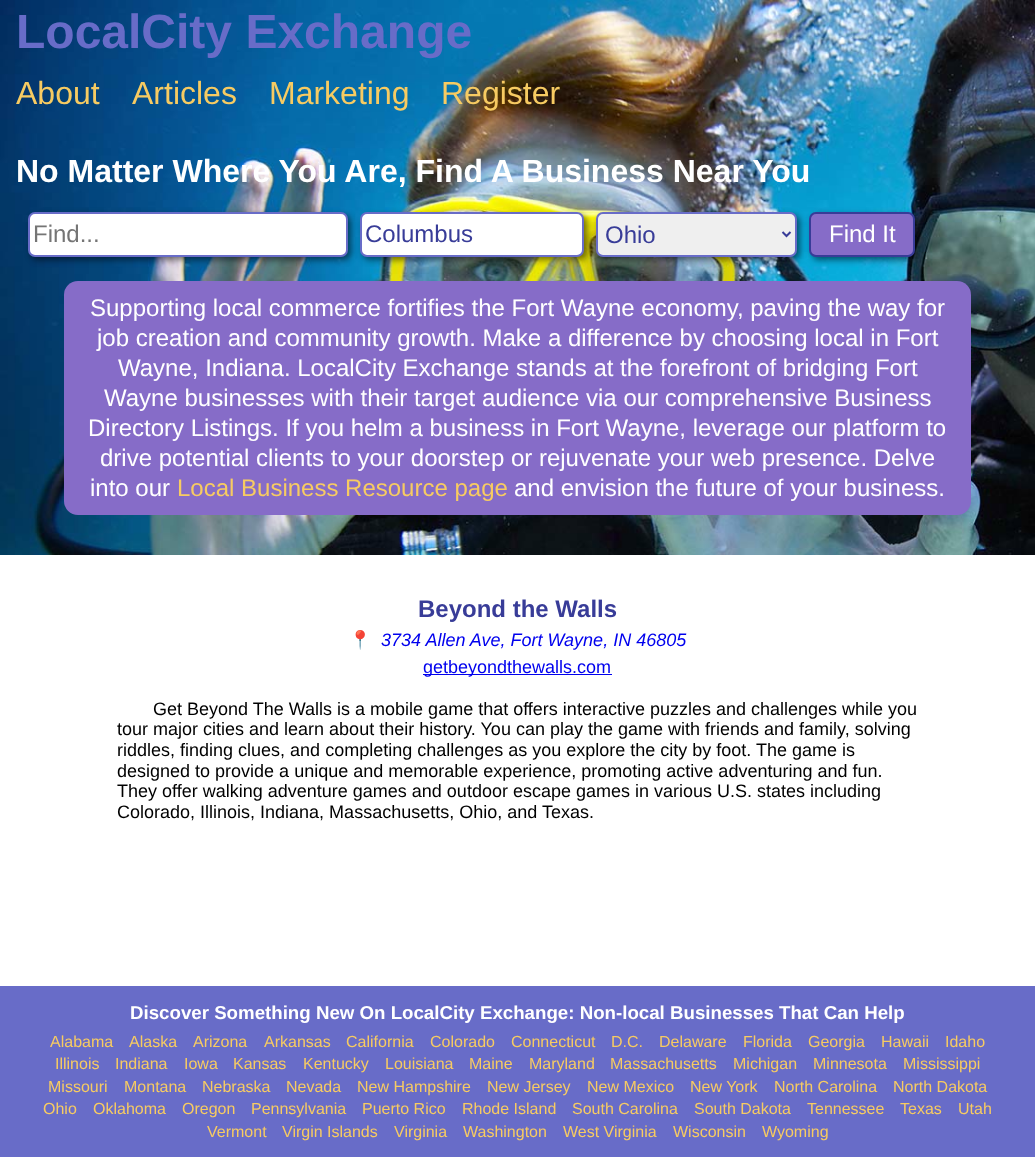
<!DOCTYPE html>
<meta charset="utf-8">
<style>body { margin: 0 } canvas { display: block }</style>
<canvas id="canvas" width="1035" height="1157"></canvas>
<img id="img1" src="images/1.png" hidden>
<script>
window.onload = function () {
    const canvas = document.getElementById('canvas');
    const context = canvas.getContext('2d');
    context.miterLimit = 4;
    context.fontKerning = 'normal';

    context.fillStyle = 'rgb(255, 255, 255)';
    context.fillRect(0, 0, 1035, 1157);
    context.drawImage(document.getElementById('img1'), 0, 0, 1035, 555);
    context.fillStyle = 'rgba(0, 0, 0, 0.5)';
    context.filter = 'blur(3px)';
    context.beginPath();
    context.roundRect(31, 215, 320, 45, 7);
    context.fill();
    context.filter = 'none';
    context.fillStyle = 'rgb(255, 255, 255)';
    context.beginPath();
    context.roundRect(29, 213, 318, 43, 6);
    context.fill();
    context.strokeStyle = 'rgb(104, 108, 200)';
    context.lineWidth = 2;
    context.stroke();
    context.fillStyle = 'rgba(0, 0, 0, 0.5)';
    context.filter = 'blur(3px)';
    context.beginPath();
    context.roundRect(363, 215, 224, 45, 7);
    context.fill();
    context.filter = 'none';
    context.fillStyle = 'rgb(255, 255, 255)';
    context.beginPath();
    context.roundRect(361, 213, 222, 43, 6);
    context.fill();
    context.stroke();
    context.fillStyle = 'rgba(0, 0, 0, 0.5)';
    context.filter = 'blur(3px)';
    context.beginPath();
    context.roundRect(599, 215, 201, 45, 7);
    context.fill();
    context.filter = 'none';
    context.fillStyle = 'rgb(239, 239, 239)';
    context.beginPath();
    context.roundRect(597, 213, 199, 43, 6);
    context.fill();
    context.stroke();
    context.beginPath();
    context.moveTo(782.5, 232);
    context.lineTo(786.5, 236);
    context.lineTo(790.5, 232);
    context.strokeStyle = 'rgb(56, 60, 152)';
    context.stroke();
    context.fillStyle = 'rgba(0, 0, 0, 0.5)';
    context.filter = 'blur(3px)';
    context.beginPath();
    context.roundRect(812, 215, 106, 45, 7);
    context.fill();
    context.filter = 'none';
    context.fillStyle = 'rgb(134, 108, 200)';
    context.beginPath();
    context.roundRect(810, 213, 104, 43, 6);
    context.fill();
    context.stroke();
    context.beginPath();
    context.roundRect(64, 281, 907, 234, 14);
    context.fill();
    context.fillStyle = 'rgb(0, 0, 238)';
    context.fillRect(423, 674, 189, 1);
    context.fillStyle = 'rgb(104, 108, 200)';
    context.fillRect(0, 986, 1035, 171);
    context.font = 'bold 48px Liberation Sans';
    context.fillText('LocalCity Exchange', 16, 48);
    context.font = '32px Liberation Sans';
    context.fillStyle = 'rgb(247, 203, 98)';
    context.fillText('About', 16, 104);
    context.fillText('Articles', 132, 104);
    context.fillText('Marketing', 269, 104);
    context.fillText('Register', 441, 104);
    context.font = 'bold 32px Liberation Sans';
    context.fillStyle = 'rgb(255, 255, 255)';
    context.fillText('No Matter Where You Are, Find A Business Near You', 16, 182);
    context.font = '24px Liberation Sans';
    context.fillStyle = 'rgb(117, 117, 117)';
    context.fillText('Find...', 33, 242);
    context.fillStyle = 'rgb(56, 60, 152)';
    context.fillText('Columbus', 365, 242);
    context.fillText('Ohio', 605, 243);
    context.fillStyle = 'rgb(255, 255, 255)';
    context.fillText('Find It', 829, 242);
    context.fillText('Supporting local commerce fortifies the Fort Wayne economy, paving the way for', 90, 316);
    context.fillText('job creation and community growth. Make a difference by choosing local in Fort', 97, 346);
    context.fillText('Wayne, Indiana. LocalCity Exchange stands at the forefront of bridging Fort', 118, 376);
    context.fillText('Wayne businesses with their target audience via our comprehensive Business', 104, 406);
    context.fillText('Directory Listings. If you helm a business in Fort Wayne, leverage our platform to', 88, 436);
    context.fillText('drive potential clients to your doorstep or rejuvenate your web presence. Delve', 100, 466);
    context.fillText('into our', 90, 496);
    context.fillStyle = 'rgb(247, 203, 98)';
    context.fillText('Local Business Resource page', 177, 496);
    context.fillStyle = 'rgb(255, 255, 255)';
    context.fillText('and envision the future of your business.', 514, 496);
    context.font = 'bold 24px Liberation Sans';
    context.fillStyle = 'rgb(56, 60, 152)';
    context.fillText('Beyond the Walls', 418, 617);
    context.font = '18px Noto Color Emoji';
    context.fillStyle = 'rgb(0, 0, 238)';
    context.fillText('📍', 349, 646);
    context.font = 'italic 18px Liberation Sans';
    context.fillText('3734 Allen Ave, Fort Wayne, IN 46805', 381, 646);
    context.font = '18px Liberation Sans';
    context.fillText('getbeyondthewalls.com', 423, 673);
    context.fillStyle = 'rgb(0, 0, 0)';
    context.fillText('Get Beyond The Walls is a mobile game that offers interactive puzzles and challenges while you', 153, 715);
    context.fillText('tour major cities and learn about their history. You can play the game with friends and family, solving', 117, 735);
    context.fillText('riddles, finding clues, and completing challenges as you explore the city by foot. The game is', 117, 756);
    context.fillText('designed to provide a unique and memorable experience, promoting active adventuring and fun.', 117, 777);
    context.fillText('They offer walking adventure games and outdoor escape games in various U.S. states including', 117, 797);
    context.fillText('Colorado, Illinois, Indiana, Massachusetts, Ohio, and Texas.', 117, 818);
    context.font = 'bold 18.7px Liberation Sans';
    context.fillStyle = 'rgb(255, 255, 255)';
    context.fillText('Discover Something New On LocalCity Exchange: Non-local Businesses That Can Help', 130, 1019);
    context.font = '16px Liberation Sans';
    context.fillStyle = 'rgb(247, 203, 98)';
    context.fillText('Alabama', 50, 1047);
    context.fillText('Alaska', 129, 1047);
    context.fillText('Arizona', 193, 1047);
    context.fillText('Arkansas', 264, 1047);
    context.fillText('California', 346, 1047);
    context.fillText('Colorado', 430, 1047);
    context.fillText('Connecticut', 511, 1047);
    context.fillText('D.C.', 611, 1047);
    context.fillText('Delaware', 659, 1047);
    context.fillText('Florida', 743, 1047);
    context.fillText('Georgia', 808, 1047);
    context.fillText('Hawaii', 881, 1047);
    context.fillText('Idaho', 945, 1047);
    context.fillText('Illinois', 55, 1069);
    context.fillText('Indiana', 115, 1069);
    context.fillText('Iowa', 184, 1069);
    context.fillText('Kansas', 233, 1069);
    context.fillText('Kentucky', 303, 1069);
    context.fillText('Louisiana', 385, 1069);
    context.fillText('Maine', 469, 1069);
    context.fillText('Maryland', 529, 1069);
    context.fillText('Massachusetts', 610, 1069);
    context.fillText('Michigan', 733, 1069);
    context.fillText('Minnesota', 813, 1069);
    context.fillText('Mississippi', 903, 1069);
    context.fillText('Missouri', 48, 1092);
    context.fillText('Montana', 124, 1092);
    context.fillText('Nebraska', 202, 1092);
    context.fillText('Nevada', 286, 1092);
    context.fillText('New Hampshire', 357, 1092);
    context.fillText('New Jersey', 487, 1092);
    context.fillText('New Mexico', 587, 1092);
    context.fillText('New York', 690, 1092);
    context.fillText('North Carolina', 774, 1092);
    context.fillText('North Dakota', 893, 1092);
    context.fillText('Ohio', 43, 1114);
    context.fillText('Oklahoma', 93, 1114);
    context.fillText('Oregon', 182, 1114);
    context.fillText('Pennsylvania', 251, 1114);
    context.fillText('Puerto Rico', 362, 1114);
    context.fillText('Rhode Island', 462, 1114);
    context.fillText('South Carolina', 572, 1114);
    context.fillText('South Dakota', 694, 1114);
    context.fillText('Tennessee', 807, 1114);
    context.fillText('Texas', 900, 1114);
    context.fillText('Utah', 958, 1114);
    context.fillText('Vermont', 207, 1137);
    context.fillText('Virgin Islands', 282, 1137);
    context.fillText('Virginia', 394, 1137);
    context.fillText('Washington', 463, 1137);
    context.fillText('West Virginia', 563, 1137);
    context.fillText('Wisconsin', 673, 1137);
    context.fillText('Wyoming', 762, 1137);
};
</script>
